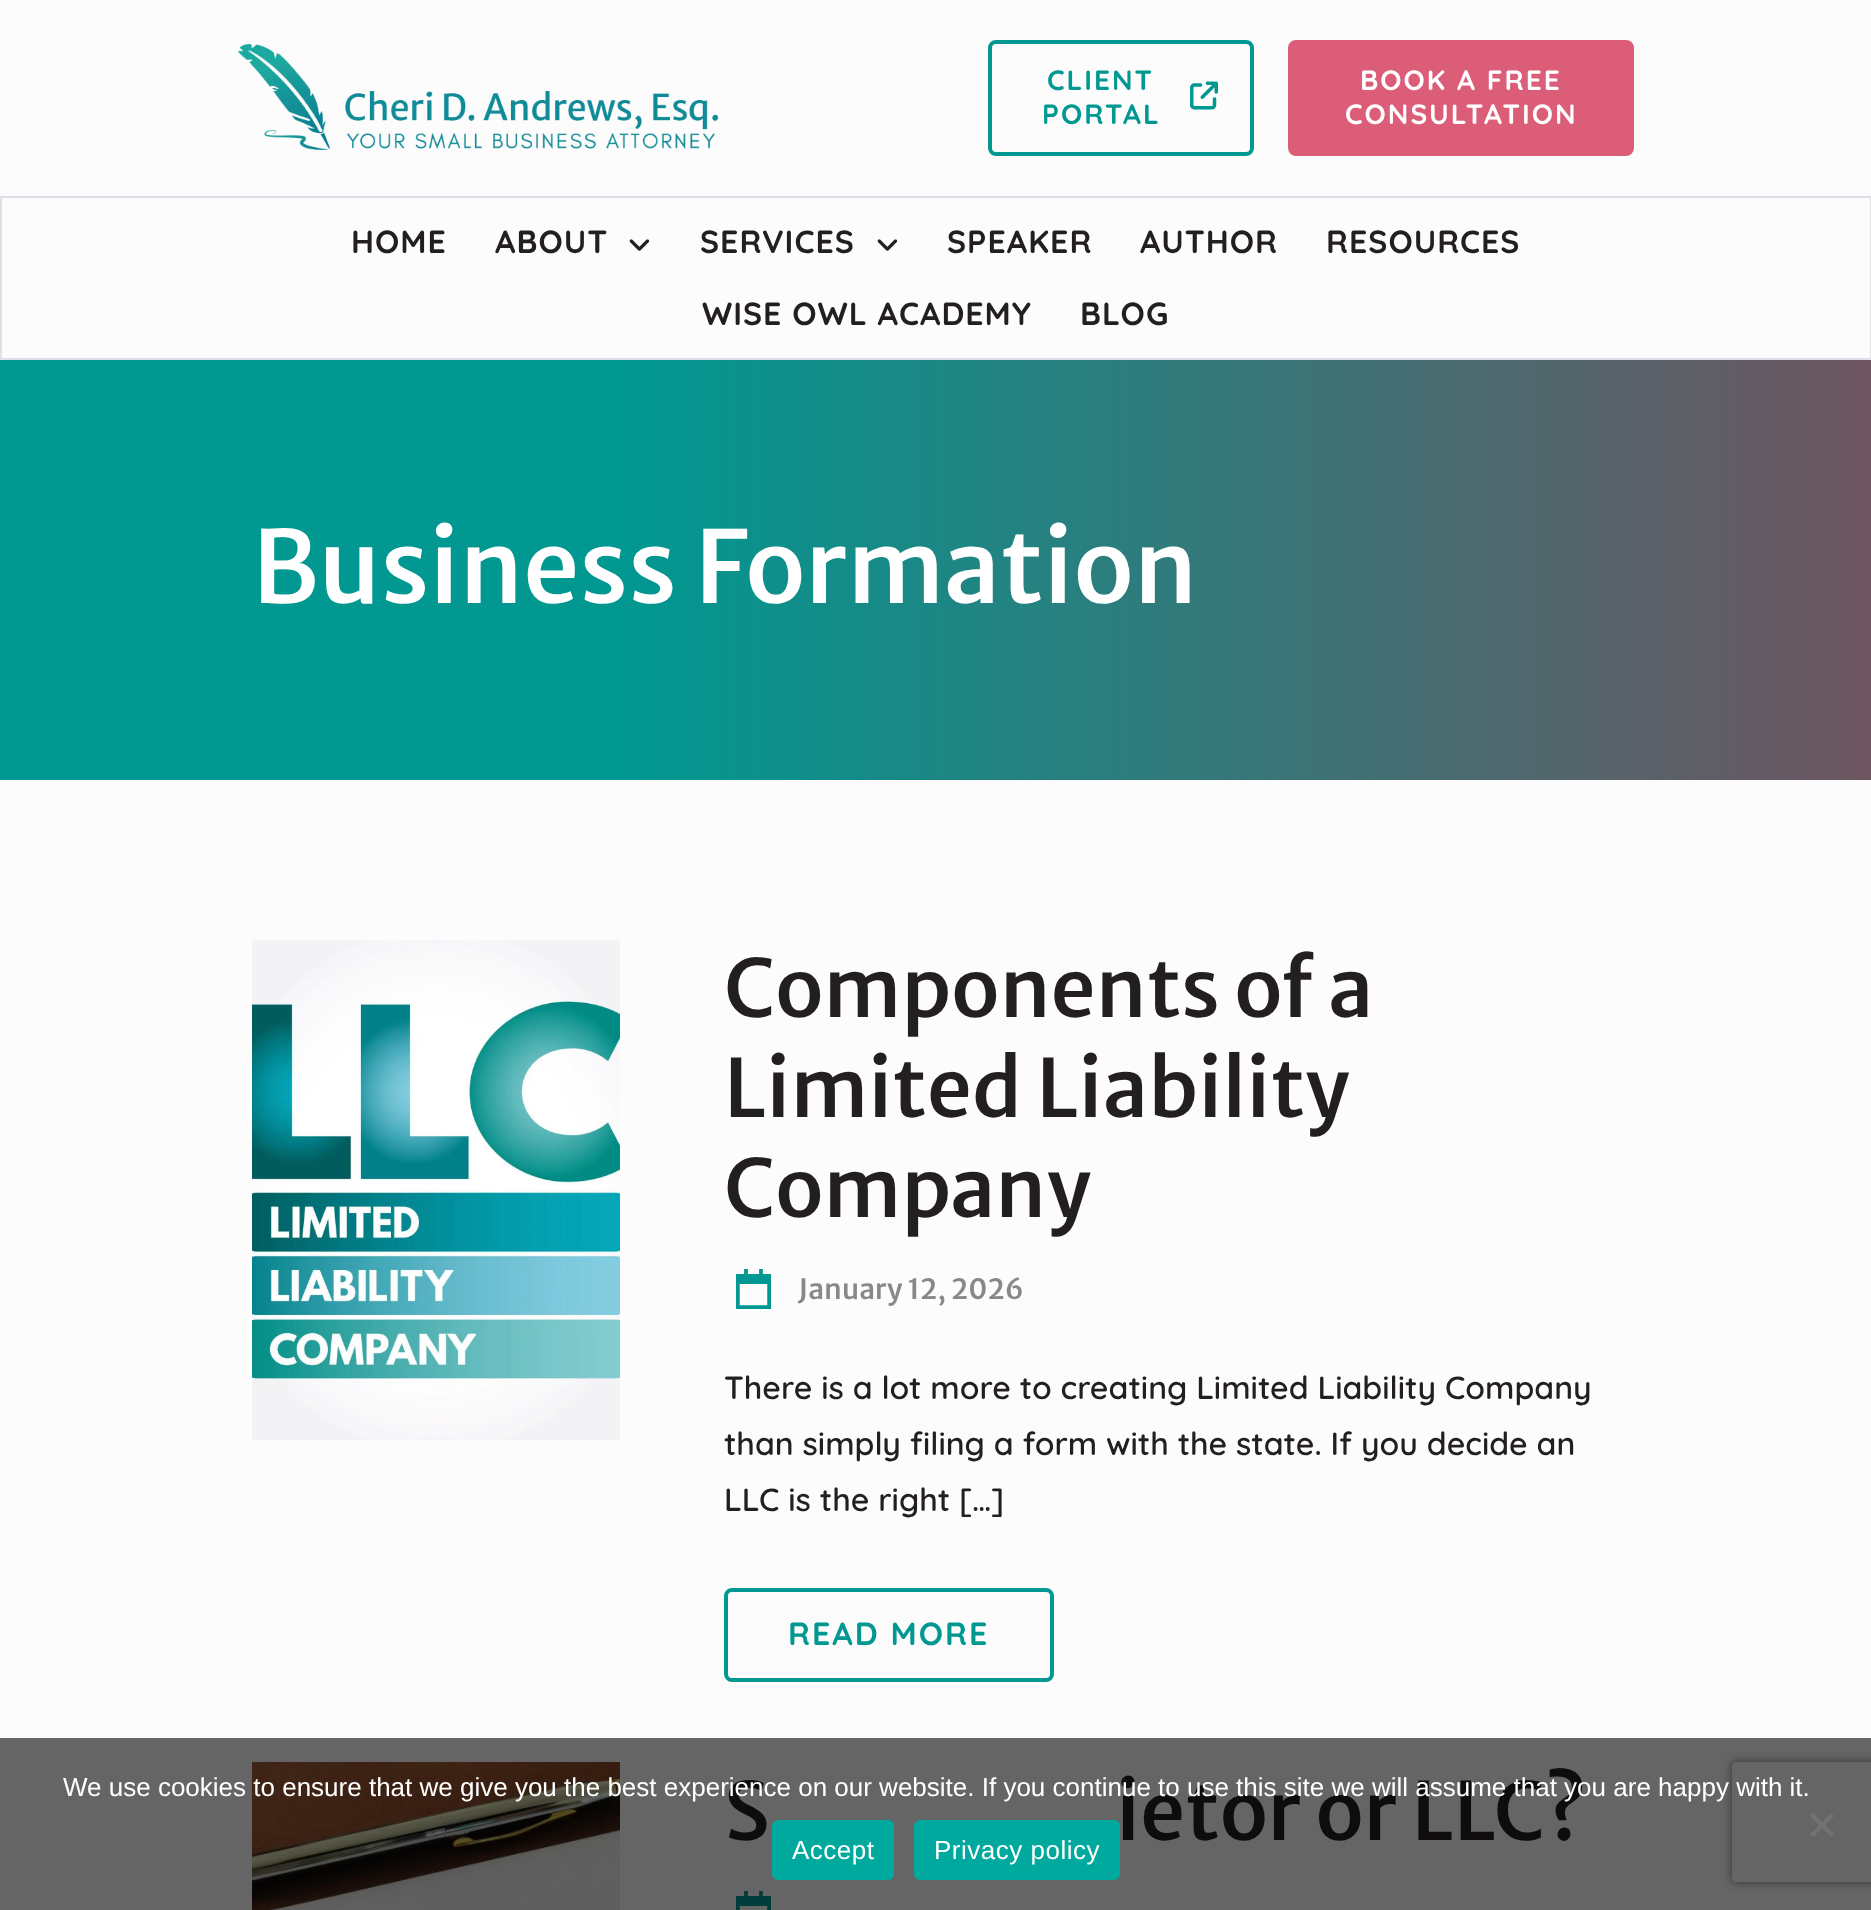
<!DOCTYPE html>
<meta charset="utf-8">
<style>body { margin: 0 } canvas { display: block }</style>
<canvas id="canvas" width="1871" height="1910"></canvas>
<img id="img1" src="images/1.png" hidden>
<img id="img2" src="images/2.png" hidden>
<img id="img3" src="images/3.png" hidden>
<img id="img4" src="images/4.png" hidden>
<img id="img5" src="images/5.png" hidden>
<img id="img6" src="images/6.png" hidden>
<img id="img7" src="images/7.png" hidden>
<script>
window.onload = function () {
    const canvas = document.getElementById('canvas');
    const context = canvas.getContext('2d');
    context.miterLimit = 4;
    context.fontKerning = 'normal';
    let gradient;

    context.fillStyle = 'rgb(252, 252, 252)';
    context.fillRect(0, 0, 1871, 1910);
    context.fillStyle = 'rgb(101, 101, 101)';
    context.fillRect(0, 1738, 1871, 172);
    context.drawImage(document.getElementById('img1'), 238, 44, 480, 106);
    context.beginPath();
    context.roundRect(990, 42, 262, 112, 6);
    context.strokeStyle = 'rgb(0, 152, 145)';
    context.lineWidth = 4;
    context.stroke();
    context.drawImage(document.getElementById('img2'), 1190, 81, 28, 29);
    context.fillStyle = 'rgb(219, 93, 120)';
    context.beginPath();
    context.roundRect(1290, 42, 342, 112, 6);
    context.fill();
    context.strokeStyle = 'rgb(219, 93, 120)';
    context.stroke();
    context.strokeStyle = 'rgb(221, 224, 232)';
    context.lineWidth = 2;
    context.strokeRect(1, 197, 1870, 162);
    context.drawImage(document.getElementById('img3'), 629, 239, 21, 12);
    context.drawImage(document.getElementById('img3'), 877, 239, 21, 12);
    gradient = context.createLinearGradient(0, 570, 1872, 570);
    gradient.addColorStop(0.33, 'rgb(0, 152, 145)');
    gradient.addColorStop(1, 'rgb(110, 85, 96)');
    context.fillStyle = gradient;
    context.fillRect(0, 360, 1871, 420);
    context.drawImage(document.getElementById('img4'), 252, 940, 368, 500);
    context.drawImage(document.getElementById('img5'), 736, 1269, 35, 40);
    context.beginPath();
    context.roundRect(726, 1590, 326, 90, 6);
    context.strokeStyle = 'rgb(0, 152, 145)';
    context.lineWidth = 4;
    context.stroke();
    context.drawImage(document.getElementById('img6'), 252, 1762, 368, 148);
    context.drawImage(document.getElementById('img7'), 736, 1891, 35, 19);
    context.save();
    context.beginPath();
    context.moveTo(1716, 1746);
    context.lineTo(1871, 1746);
    context.lineTo(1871, 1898);
    context.lineTo(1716, 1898);
    context.closePath();
    context.moveTo(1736, 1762);
    context.lineTo(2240, 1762);
    context.bezierCurveTo(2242, 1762, 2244, 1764, 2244, 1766);
    context.lineTo(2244, 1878);
    context.bezierCurveTo(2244, 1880, 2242, 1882, 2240, 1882);
    context.lineTo(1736, 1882);
    context.bezierCurveTo(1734, 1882, 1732, 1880, 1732, 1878);
    context.lineTo(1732, 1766);
    context.bezierCurveTo(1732, 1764, 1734, 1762, 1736, 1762);
    context.closePath();
    context.clip('evenodd');
    context.fillStyle = 'rgb(51, 51, 51)';
    context.filter = 'blur(5px)';
    context.beginPath();
    context.roundRect(1732, 1762, 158, 120, 4);
    context.fill();
    context.filter = 'none';
    context.restore();
    context.fillStyle = 'rgb(114, 114, 114)';
    context.beginPath();
    context.moveTo(1831, 1813);
    context.lineTo(1834, 1816);
    context.lineTo(1813, 1837);
    context.lineTo(1810, 1834);
    context.closePath();
    context.fill();
    context.beginPath();
    context.moveTo(1810, 1816);
    context.lineTo(1813, 1813);
    context.lineTo(1834, 1834);
    context.lineTo(1831, 1837);
    context.closePath();
    context.fill();
    context.fillStyle = 'rgb(0, 169, 157)';
    context.beginPath();
    context.roundRect(772, 1820, 122, 60, 6);
    context.fill();
    context.beginPath();
    context.roundRect(914, 1820, 206, 60, 6);
    context.fill();
    context.letterSpacing = '2px';
    context.font = 'bold 28px Quicksand';
    context.fillStyle = 'rgb(0, 152, 145)';
    context.fillText('CLIENT', 1047, 90);
    context.fillText('PORTAL', 1042, 124);
    context.fillStyle = 'rgb(255, 255, 255)';
    context.fillText('BOOK A FREE', 1360, 90);
    context.fillText('CONSULTATION', 1345, 124);
    context.letterSpacing = '1px';
    context.font = 'bold 32px Quicksand';
    context.fillStyle = 'rgb(35, 31, 32)';
    context.fillText('HOME', 351, 253);
    context.fillText('ABOUT', 495, 253);
    context.fillText('SERVICES', 700, 253);
    context.fillText('SPEAKER', 947, 253);
    context.fillText('AUTHOR', 1140, 253);
    context.fillText('RESOURCES', 1326, 253);
    context.fillText('WISE OWL ACADEMY', 702, 325);
    context.fillText('BLOG', 1080, 325);
    context.letterSpacing = '0px';
    context.font = '500 100px Merriweather Sans';
    context.fillStyle = 'rgb(255, 255, 255)';
    context.fillText('Business Formation', 252, 603);
    context.font = '500 80px Merriweather Sans';
    context.fillStyle = 'rgb(35, 31, 32)';
    context.fillText('Components of a', 724, 1017);
    context.fillText('Limited Liability', 724, 1117);
    context.fillText('Company', 724, 1217);
    context.font = '500 28px Merriweather Sans';
    context.fillStyle = 'rgb(136, 136, 136)';
    context.fillText('January 12, 2026', 798, 1299);
    context.font = '600 32px Quicksand';
    context.fillStyle = 'rgb(35, 31, 32)';
    context.fillText('There is a lot more to creating Limited Liability Company', 724, 1399);
    context.fillText('than simply filing a form with the state. If you decide an', 724, 1455);
    context.fillText('LLC is the right […]', 724, 1511);
    context.letterSpacing = '2px';
    context.font = 'bold 32px Quicksand';
    context.fillStyle = 'rgb(0, 152, 145)';
    context.fillText('READ MORE', 788, 1645);
    context.letterSpacing = '0px';
    context.font = '500 80px Merriweather Sans';
    context.fillStyle = 'rgb(14, 12, 13)';
    context.fillText('S', 724, 1840);
    context.fillText('ietor or LLC?', 1116, 1840);
    context.font = '26px Liberation Sans';
    context.fillStyle = 'rgb(255, 255, 255)';
    context.fillText('We use cookies to ensure that we give you the best experience on our website. If you continue to use this site we will assume that you are happy with it.', 63, 1796);
    context.letterSpacing = '0.5px';
    context.fillText('Accept', 792, 1859);
    context.fillText('Privacy policy', 934, 1859);
};
</script>
